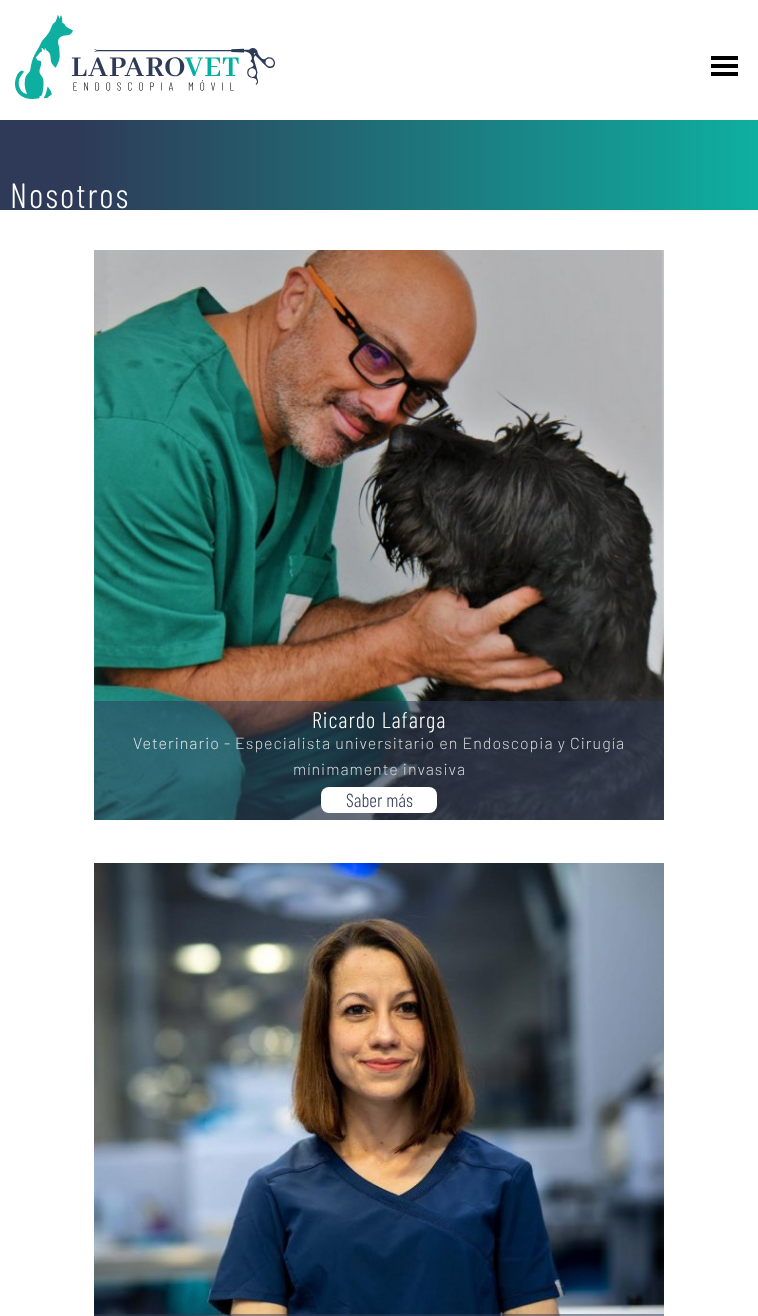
<!DOCTYPE html>
<meta charset="utf-8">
<style>body { margin: 0 } canvas { display: block }</style>
<canvas id="canvas" width="758" height="1316"></canvas>
<img id="img1" src="images/1.png" hidden>
<img id="img2" src="images/2.png" hidden>
<img id="img3" src="images/3.png" hidden>
<script>
window.onload = function () {
    const canvas = document.getElementById('canvas');
    const context = canvas.getContext('2d');
    context.miterLimit = 4;
    context.fontKerning = 'normal';
    let gradient;

    context.fillStyle = 'rgb(255, 255, 255)';
    context.fillRect(0, 0, 758, 1316);
    context.drawImage(document.getElementById('img1'), 15, 15, 260, 84);
    context.fillStyle = 'rgb(0, 0, 0)';
    context.fillRect(711, 56, 27, 4);
    context.fillRect(711, 72, 27, 4);
    context.fillRect(711, 64, 27, 4);
    gradient = context.createLinearGradient(0, 165, 758, 165);
    gradient.addColorStop(0.1, 'rgb(46, 58, 87)');
    gradient.addColorStop(1, 'rgb(14, 175, 160)');
    context.fillStyle = gradient;
    context.fillRect(0, 120, 758, 90);
    context.drawImage(document.getElementById('img2'), 94, 250, 570, 570);
    context.fillStyle = 'rgba(46, 58, 87, 0.5)';
    context.fillRect(94, 701, 570, 119);
    context.fillStyle = 'rgb(255, 255, 255)';
    context.beginPath();
    context.roundRect(321, 787, 116, 26, 8);
    context.fill();
    context.drawImage(document.getElementById('img3'), 94, 863, 570, 453);
    context.fillStyle = 'rgba(46, 58, 87, 0.5)';
    context.fillRect(94, 1314, 570, 2);
    context.letterSpacing = '2px';
    context.font = '300 35px Barlow Condensed';
    context.fillStyle = 'rgb(255, 255, 255)';
    context.fillText('Nosotros', 10, 208);
    context.letterSpacing = '1px';
    context.font = '300 22.5px Barlow Condensed';
    context.fillText('Ricardo Lafarga', 312, 728);
    context.font = '300 16px Barlow';
    context.fillStyle = 'rgb(213, 225, 227)';
    context.fillText('Veterinario -', 133, 749);
    context.fillStyle = 'rgb(211, 214, 217)';
    context.fillText('Especialista universitario en Endoscopia y Cirugía', 235, 749);
    context.fillText('mínimamente invasiva', 293, 775);
    context.letterSpacing = '0px';
    context.font = '300 19px Barlow Condensed';
    context.fillStyle = 'rgb(46, 58, 87)';
    context.fillText('Saber más', 346, 807);
};
</script>
